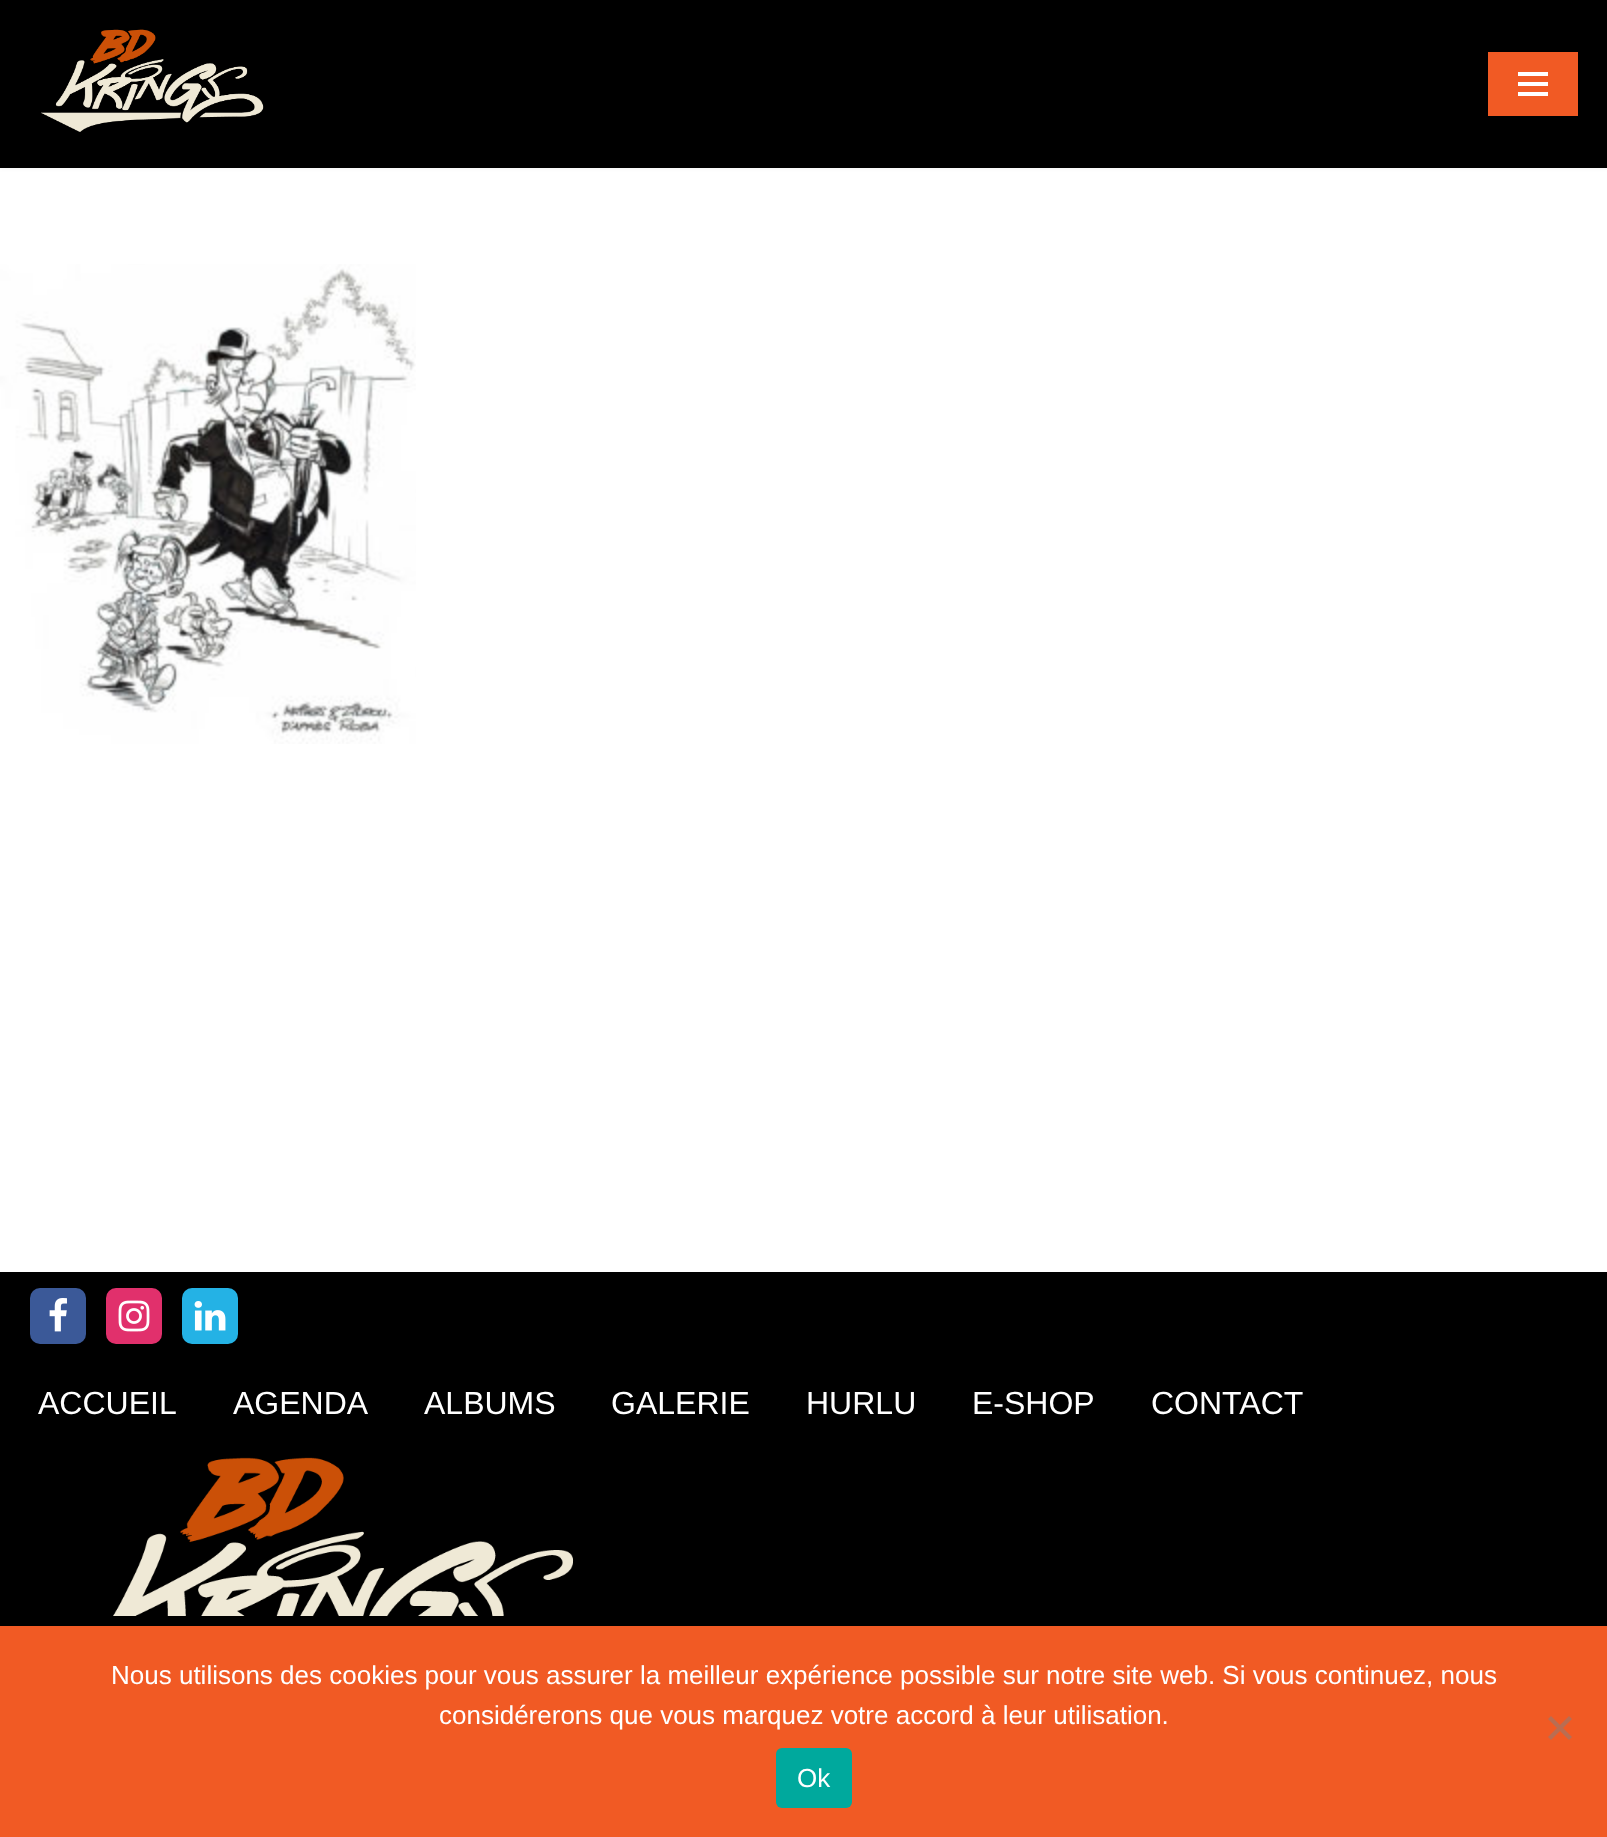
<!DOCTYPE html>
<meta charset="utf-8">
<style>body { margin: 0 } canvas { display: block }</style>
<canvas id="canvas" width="1607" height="1837"></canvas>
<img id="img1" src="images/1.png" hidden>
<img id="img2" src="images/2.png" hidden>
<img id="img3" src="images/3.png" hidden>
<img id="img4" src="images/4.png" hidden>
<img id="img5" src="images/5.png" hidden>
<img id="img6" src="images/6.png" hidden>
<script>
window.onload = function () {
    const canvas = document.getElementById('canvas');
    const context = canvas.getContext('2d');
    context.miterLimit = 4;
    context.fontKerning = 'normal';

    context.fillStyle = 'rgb(255, 255, 255)';
    context.fillRect(0, 0, 1607, 1837);
    context.fillStyle = 'rgba(0, 0, 0, 0.1)';
    context.filter = 'blur(3px)';
    context.beginPath();
    context.rect(0, -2, 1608, 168);
    context.fill();
    context.filter = 'none';
    context.fillStyle = 'rgb(0, 0, 0)';
    context.fillRect(0, 0, 1607, 168);
    context.drawImage(document.getElementById('img1'), 41, 29, 223, 103);
    context.fillStyle = 'rgb(241, 90, 36)';
    context.fillRect(1488, 52, 90, 64);
    context.fillStyle = 'rgb(255, 255, 255)';
    context.fillRect(1518, 72, 30, 4);
    context.fillRect(1518, 82, 30, 4);
    context.fillRect(1518, 92, 30, 4);
    context.drawImage(document.getElementById('img2'), 0, 264, 416, 480);
    context.fillStyle = 'rgb(0, 0, 0)';
    context.fillRect(0, 1272, 1607, 354);
    context.fillStyle = 'rgb(59, 89, 152)';
    context.beginPath();
    context.roundRect(30, 1288, 56, 56, 10);
    context.fill();
    context.drawImage(document.getElementById('img3'), 49, 1298, 18, 34);
    context.fillStyle = 'rgb(225, 48, 108)';
    context.beginPath();
    context.roundRect(106, 1288, 56, 56, 10);
    context.fill();
    context.drawImage(document.getElementById('img4'), 118, 1300, 32, 32);
    context.fillStyle = 'rgb(36, 178, 229)';
    context.beginPath();
    context.roundRect(182, 1288, 56, 56, 10);
    context.fill();
    context.drawImage(document.getElementById('img5'), 194, 1301, 32, 30);
    context.drawImage(document.getElementById('img6'), 107, 1457, 485, 159);
    context.fillStyle = 'rgb(241, 90, 36)';
    context.fillRect(0, 1626, 1607, 211);
    context.fillStyle = 'rgb(185, 109, 82)';
    context.beginPath();
    context.moveTo(1569, 1716);
    context.lineTo(1572, 1719);
    context.lineTo(1551, 1740);
    context.lineTo(1548, 1737);
    context.closePath();
    context.fill();
    context.beginPath();
    context.moveTo(1548, 1719);
    context.lineTo(1551, 1716);
    context.lineTo(1572, 1737);
    context.lineTo(1569, 1740);
    context.closePath();
    context.fill();
    context.fillStyle = 'rgb(0, 169, 157)';
    context.beginPath();
    context.roundRect(776, 1748, 76, 60, 6);
    context.fill();
    context.font = '32px Liberation Sans';
    context.fillStyle = 'rgb(255, 255, 255)';
    context.fillText('ACCUEIL', 38, 1414);
    context.fillText('AGENDA', 233, 1414);
    context.fillText('ALBUMS', 424, 1414);
    context.fillText('GALERIE', 611, 1414);
    context.fillText('HURLU', 806, 1414);
    context.fillText('E-SHOP', 972, 1414);
    context.fillText('CONTACT', 1151, 1414);
    context.font = '26px Liberation Sans';
    context.fillText('Nous utilisons des cookies pour vous assurer la meilleur expérience possible sur notre site web. Si vous continuez, nous', 111, 1684);
    context.fillText('considérerons que vous marquez votre accord à leur utilisation.', 439, 1724);
    context.fillText('Ok', 797, 1787);
};
</script>
